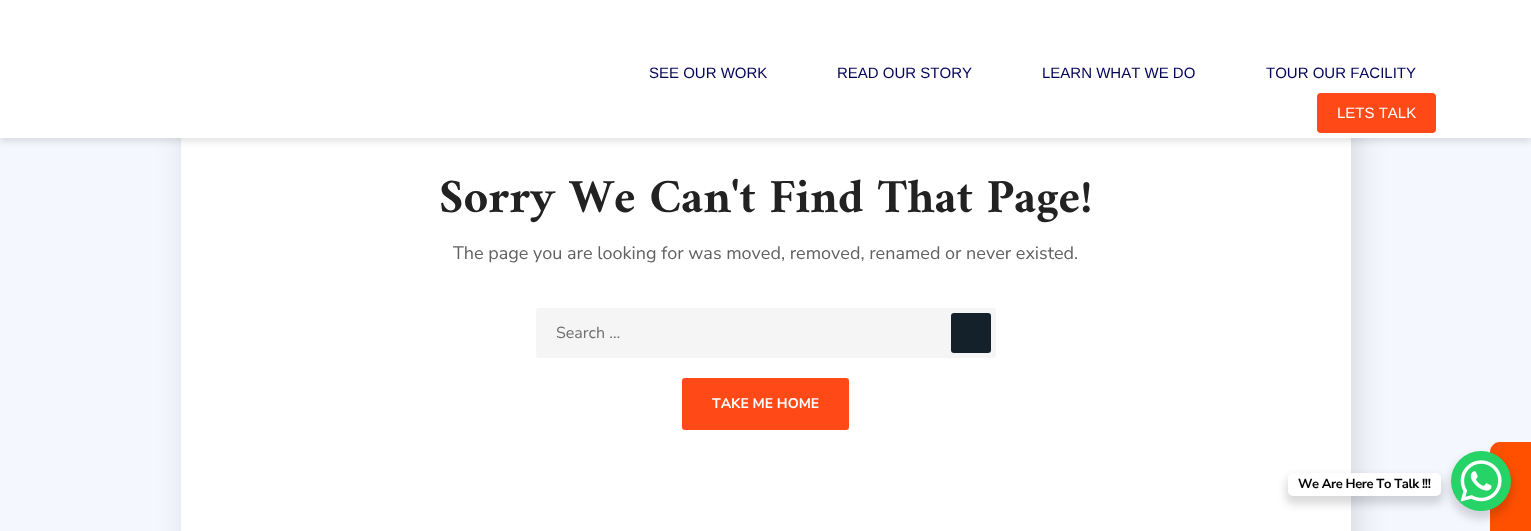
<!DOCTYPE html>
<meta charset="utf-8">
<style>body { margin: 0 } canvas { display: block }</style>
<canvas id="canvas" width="1531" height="531"></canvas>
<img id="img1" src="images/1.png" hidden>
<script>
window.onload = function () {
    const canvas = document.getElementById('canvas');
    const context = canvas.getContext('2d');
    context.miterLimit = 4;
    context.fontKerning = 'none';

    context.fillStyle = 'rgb(245, 247, 255)';
    context.fillRect(0, 0, 1531, 531);
    context.fillStyle = 'rgba(0, 0, 0, 0.12)';
    context.filter = 'blur(15px)';
    context.beginPath();
    context.roundRect(187, 5, 1170, 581, 10);
    context.fill();
    context.filter = 'none';
    context.fillStyle = 'rgb(255, 255, 255)';
    context.fillRect(181, 138, 1170, 393);
    context.fillStyle = 'rgba(0, 0, 0, 0.1)';
    context.filter = 'blur(3px)';
    context.beginPath();
    context.rect(0, 4, 1531, 138);
    context.fill();
    context.filter = 'none';
    context.fillStyle = 'rgb(255, 255, 255)';
    context.fillRect(0, 0, 1531, 138);
    context.fillStyle = 'rgb(255, 74, 23)';
    context.beginPath();
    context.roundRect(1317, 93, 119, 40, 4);
    context.fill();
    context.fillStyle = 'rgb(245, 245, 245)';
    context.beginPath();
    context.roundRect(536, 308, 460, 50, 3);
    context.fill();
    context.fillStyle = 'rgb(20, 33, 43)';
    context.beginPath();
    context.roundRect(951, 313, 40, 40, 3);
    context.fill();
    context.fillStyle = 'rgb(255, 74, 23)';
    context.beginPath();
    context.roundRect(682, 378, 167, 52, 3);
    context.fill();
    context.fillStyle = 'rgb(255, 80, 0)';
    context.beginPath();
    context.moveTo(1490, 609);
    context.lineTo(1490, 452);
    context.bezierCurveTo(1490, 447, 1494, 442, 1500, 442);
    context.lineTo(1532, 442);
    context.lineTo(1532, 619);
    context.lineTo(1500, 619);
    context.bezierCurveTo(1494, 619, 1490, 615, 1490, 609);
    context.closePath();
    context.fill();
    context.fillStyle = 'rgba(0, 0, 0, 0.15)';
    context.filter = 'blur(4px)';
    context.beginPath();
    context.roundRect(1449, 455, 64, 64, 32);
    context.fill();
    context.filter = 'none';
    context.fillStyle = 'rgb(37, 211, 102)';
    context.beginPath();
    context.arc(1481, 481, 30, 0, 2 * Math.PI);
    context.fill();
    context.fillStyle = 'rgba(0, 0, 0, 0.15)';
    context.filter = 'blur(4px)';
    context.beginPath();
    context.roundRect(1286, 477, 157, 27, 7);
    context.fill();
    context.filter = 'none';
    context.fillStyle = 'rgb(255, 255, 255)';
    context.beginPath();
    context.roundRect(1288, 473, 153, 23, 5);
    context.fill();
    context.drawImage(document.getElementById('img1'), 1460, 460, 42, 42);
    context.font = '15px Liberation Sans';
    context.fillStyle = 'rgb(3, 3, 89)';
    context.fillText('SEE OUR WORK', 649, 78);
    context.fillText('READ OUR STORY', 837, 78);
    context.fillText('LEARN WHAT WE DO', 1042, 78);
    context.fillText('TOUR OUR FACILITY', 1266, 78);
    context.fillStyle = 'rgb(255, 255, 255)';
    context.fillText('LETS TALK', 1337, 118);
    context.font = 'bold 48px Amiri';
    context.fillStyle = 'rgb(34, 34, 34)';
    context.fillText('Sorry We Can\'t Find That Page!', 439, 212);
    context.font = '18px Nunito Sans';
    context.fillStyle = 'rgb(97, 97, 97)';
    context.fillText('The page you are looking for was moved, removed, renamed or never existed.', 453, 259);
    context.font = '16px Nunito Sans';
    context.fillStyle = 'rgb(110, 110, 110)';
    context.fillText('Search …', 556, 338);
    context.font = 'bold 14px Nunito Sans';
    context.fillStyle = 'rgb(255, 255, 255)';
    context.fillText('TAKE ME HOME', 712, 408);
    context.letterSpacing = '-0.4px';
    context.font = 'bold 13px Nunito Sans';
    context.fillStyle = 'rgb(0, 0, 0)';
    context.fillText('We Are Here To Talk', 1298, 488);
    context.fillText('!!!', 1422, 488);
};
</script>
